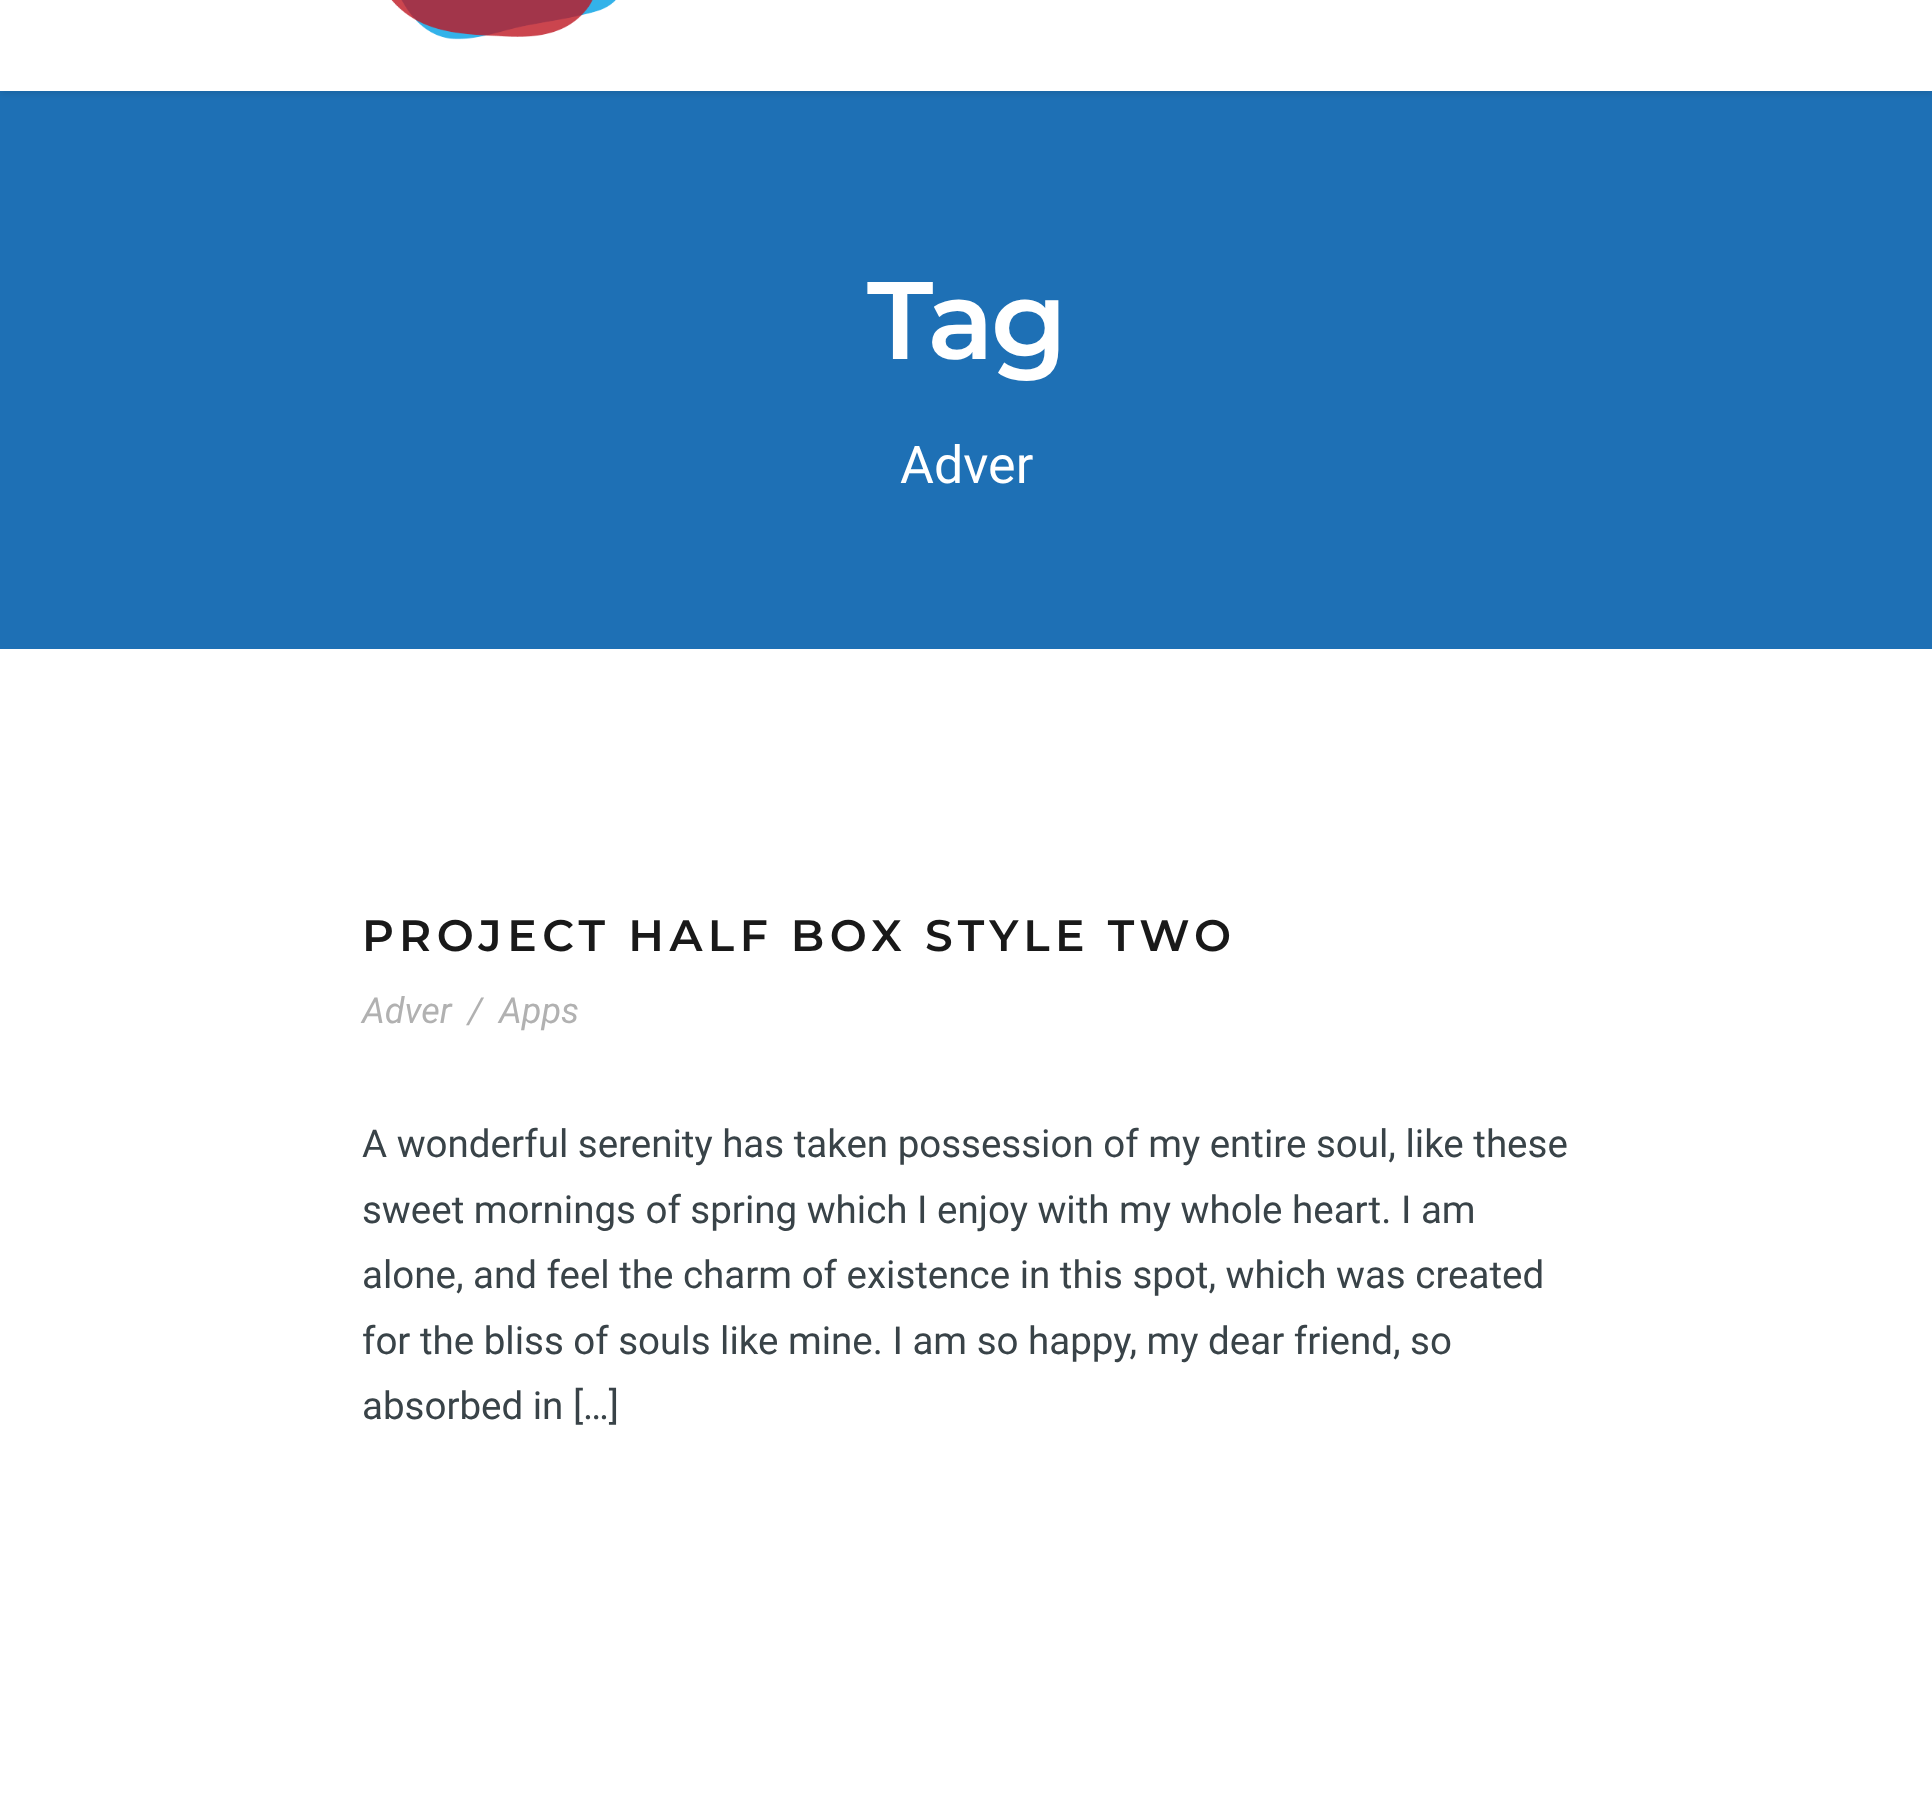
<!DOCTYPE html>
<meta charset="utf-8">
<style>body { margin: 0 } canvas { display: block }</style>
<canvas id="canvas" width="1932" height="1818"></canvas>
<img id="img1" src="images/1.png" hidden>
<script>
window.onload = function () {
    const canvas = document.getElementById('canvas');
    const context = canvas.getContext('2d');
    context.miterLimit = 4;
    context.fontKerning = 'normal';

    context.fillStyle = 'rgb(255, 255, 255)';
    context.fillRect(0, 0, 1932, 1818);
    context.fillStyle = 'rgb(30, 112, 181)';
    context.fillRect(0, 91, 1932, 558);
    context.fillStyle = 'rgba(0, 0, 0, 0.1)';
    context.filter = 'blur(3px)';
    context.beginPath();
    context.rect(0, -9, 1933, 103);
    context.fill();
    context.filter = 'none';
    context.fillStyle = 'rgb(255, 255, 255)';
    context.fillRect(0, 0, 1932, 91);
    context.drawImage(document.getElementById('img1'), 391, 0, 225, 40);
    context.letterSpacing = '-3px';
    context.font = '600 110px Montserrat';
    context.fillText('Tag', 867, 359);
    context.letterSpacing = '0px';
    context.font = '52px Roboto';
    context.fillText('Adver', 900, 483);
    context.letterSpacing = '5.5px';
    context.font = '600 44px Montserrat';
    context.fillStyle = 'rgb(25, 25, 25)';
    context.fillText('PROJECT HALF BOX STYLE TWO', 362, 951);
    context.letterSpacing = '0px';
    context.font = 'italic 36px Roboto';
    context.fillStyle = 'rgb(177, 177, 177)';
    context.fillText('Adver', 362, 1023);
    context.fillText('/', 468, 1023);
    context.fillText('Apps', 499, 1023);
    context.font = '38.5px Roboto';
    context.fillStyle = 'rgb(57, 67, 72)';
    context.fillText('A wonderful serenity has taken possession of my entire soul, like these', 362, 1157);
    context.fillText('sweet mornings of spring which I enjoy with my whole heart. I am', 362, 1223);
    context.fillText('alone, and feel the charm of existence in this spot, which was created', 362, 1288);
    context.fillText('for the bliss of souls like mine. I am so happy, my dear friend, so', 362, 1354);
    context.fillText('absorbed in […]', 362, 1419);
};
</script>
